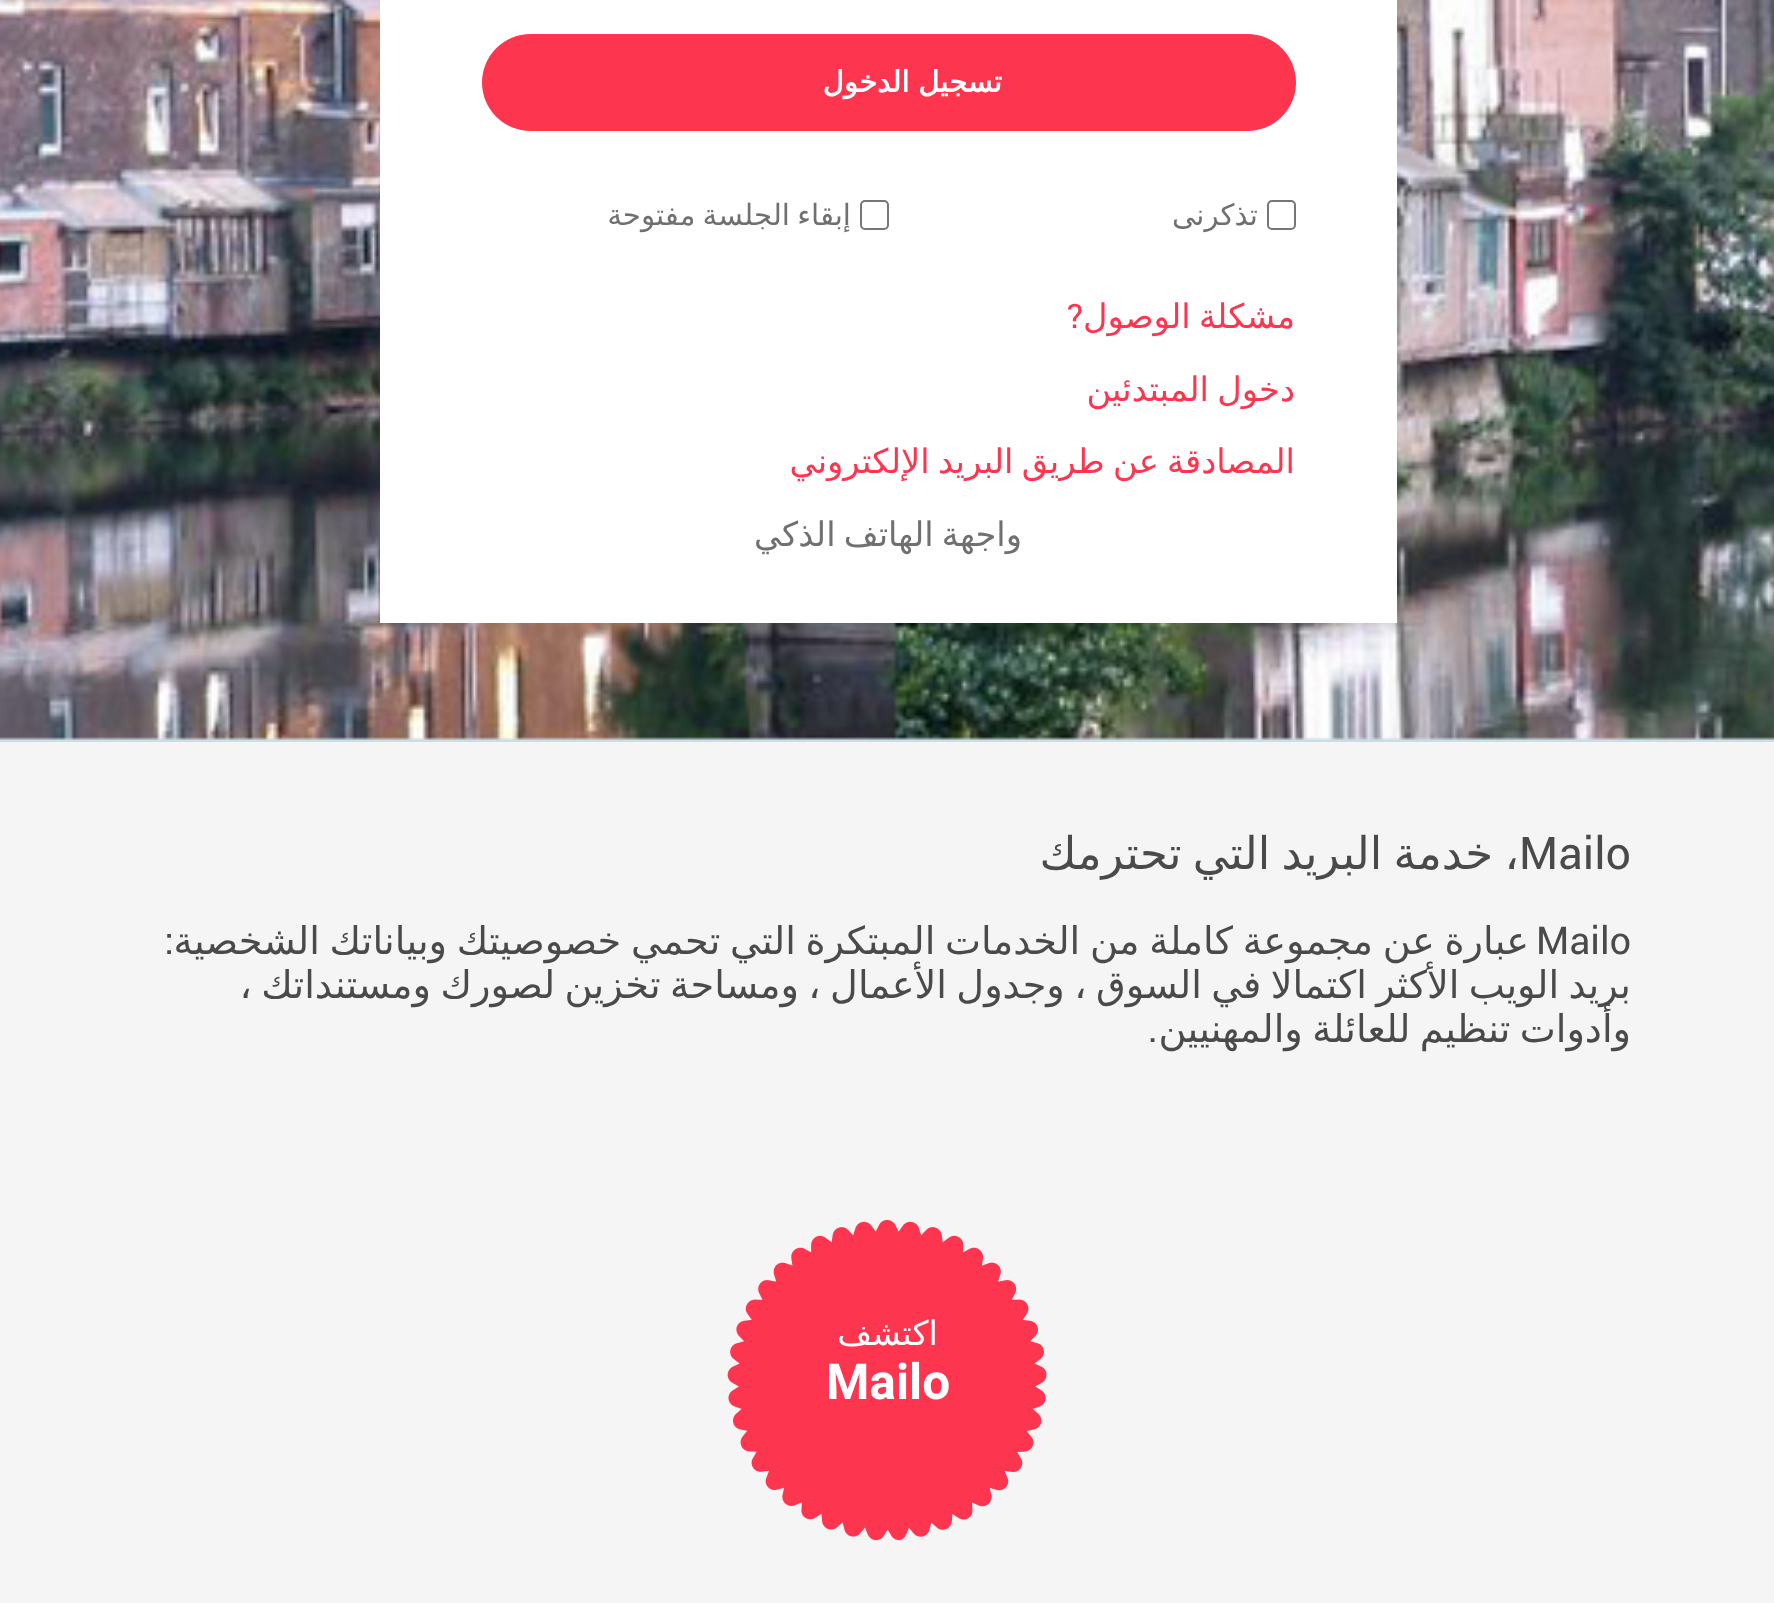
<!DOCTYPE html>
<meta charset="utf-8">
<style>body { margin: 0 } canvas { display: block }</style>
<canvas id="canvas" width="1774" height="1603"></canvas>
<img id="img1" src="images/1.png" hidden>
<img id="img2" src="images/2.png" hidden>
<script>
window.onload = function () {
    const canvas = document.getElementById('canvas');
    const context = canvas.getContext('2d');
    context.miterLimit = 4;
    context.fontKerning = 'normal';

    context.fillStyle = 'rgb(255, 255, 255)';
    context.fillRect(0, 0, 1774, 1603);
    context.drawImage(document.getElementById('img1'), 0, 0, 1774, 743);
    context.fillRect(380, 0, 1017, 623);
    context.fillStyle = 'rgb(253, 53, 78)';
    context.beginPath();
    context.roundRect(482, 34, 814, 97, 48.5);
    context.fill();
    context.beginPath();
    context.roundRect(1268, 201, 27, 28, 4);
    context.strokeStyle = 'rgb(118, 118, 118)';
    context.lineWidth = 2;
    context.stroke();
    context.beginPath();
    context.roundRect(861, 201, 27, 28, 4);
    context.stroke();
    context.fillStyle = 'rgb(245, 245, 245)';
    context.fillRect(0, 743, 1774, 860);
    context.drawImage(document.getElementById('img2'), 727, 1219, 320, 322);
    context.letterSpacing = '2.25px';
    context.wordSpacing = '-3px';
    context.direction = 'rtl';
    context.font = 'bold 29.25px DejaVu Sans';
    context.fillStyle = 'rgb(255, 255, 255)';
    context.fillText('تسجيل الدخول', 1002, 92);
    context.letterSpacing = '0px';
    context.wordSpacing = '0px';
    context.font = '29.25px DejaVu Sans';
    context.fillStyle = 'rgb(112, 112, 112)';
    context.fillText('تذكرنى', 1258, 225);
    context.wordSpacing = '-2px';
    context.fillText('إبقاء الجلسة مفتوحة', 851, 225);
    context.wordSpacing = '-2.5px';
    context.font = '33.75px DejaVu Sans';
    context.fillStyle = 'rgb(253, 53, 78)';
    context.fillText('مشكلة الوصول', 1295, 328);
    context.wordSpacing = '0px';
    context.font = '33.75px Roboto';
    context.fillText('?', 1083, 328);
    context.wordSpacing = '-2.5px';
    context.font = '33.75px DejaVu Sans';
    context.fillText('دخول المبتدئين', 1295, 401);
    context.fillText('المصادقة عن طريق البريد الإلكتروني', 1295, 473);
    context.fillStyle = 'rgb(112, 112, 112)';
    context.fillText('واجهة الهاتف الذكي', 1022, 546);
    context.wordSpacing = '-3px';
    context.font = '45px DejaVu Sans';
    context.fillStyle = 'rgb(74, 74, 74)';
    context.fillText('، خدمة البريد التي تحترمك', 1519, 869);
    context.wordSpacing = '0px';
    context.direction = 'ltr';
    context.font = '45px Roboto';
    context.fillText('Mailo', 1519, 869);
    context.wordSpacing = '-2.4px';
    context.direction = 'rtl';
    context.font = '38.25px DejaVu Sans';
    context.fillText('عبارة عن مجموعة كاملة من الخدمات المبتكرة التي تحمي خصوصيتك وبياناتك الشخصية', 1529, 954);
    context.wordSpacing = '0px';
    context.direction = 'ltr';
    context.font = '38.25px Roboto';
    context.fillText('Mailo', 1536, 954);
    context.direction = 'rtl';
    context.fillText(':', 174, 954);
    context.wordSpacing = '-2.75px';
    context.font = '38.25px DejaVu Sans';
    context.fillText('بريد الويب الأكثر اكتمالا في السوق ، وجدول الأعمال ، ومساحة تخزين لصورك ومستنداتك ،', 1631, 998);
    context.fillText('وأدوات تنظيم للعائلة والمهنيين', 1631, 1042);
    context.wordSpacing = '0px';
    context.font = '38.25px Roboto';
    context.fillText('.', 1158, 1042);
    context.font = '33.75px DejaVu Sans';
    context.fillStyle = 'rgb(255, 255, 255)';
    context.fillText('اكتشف', 938, 1345);
    context.direction = 'ltr';
    context.font = 'bold 49.5px Roboto';
    context.fillText('Mailo', 826, 1399);
};
</script>
